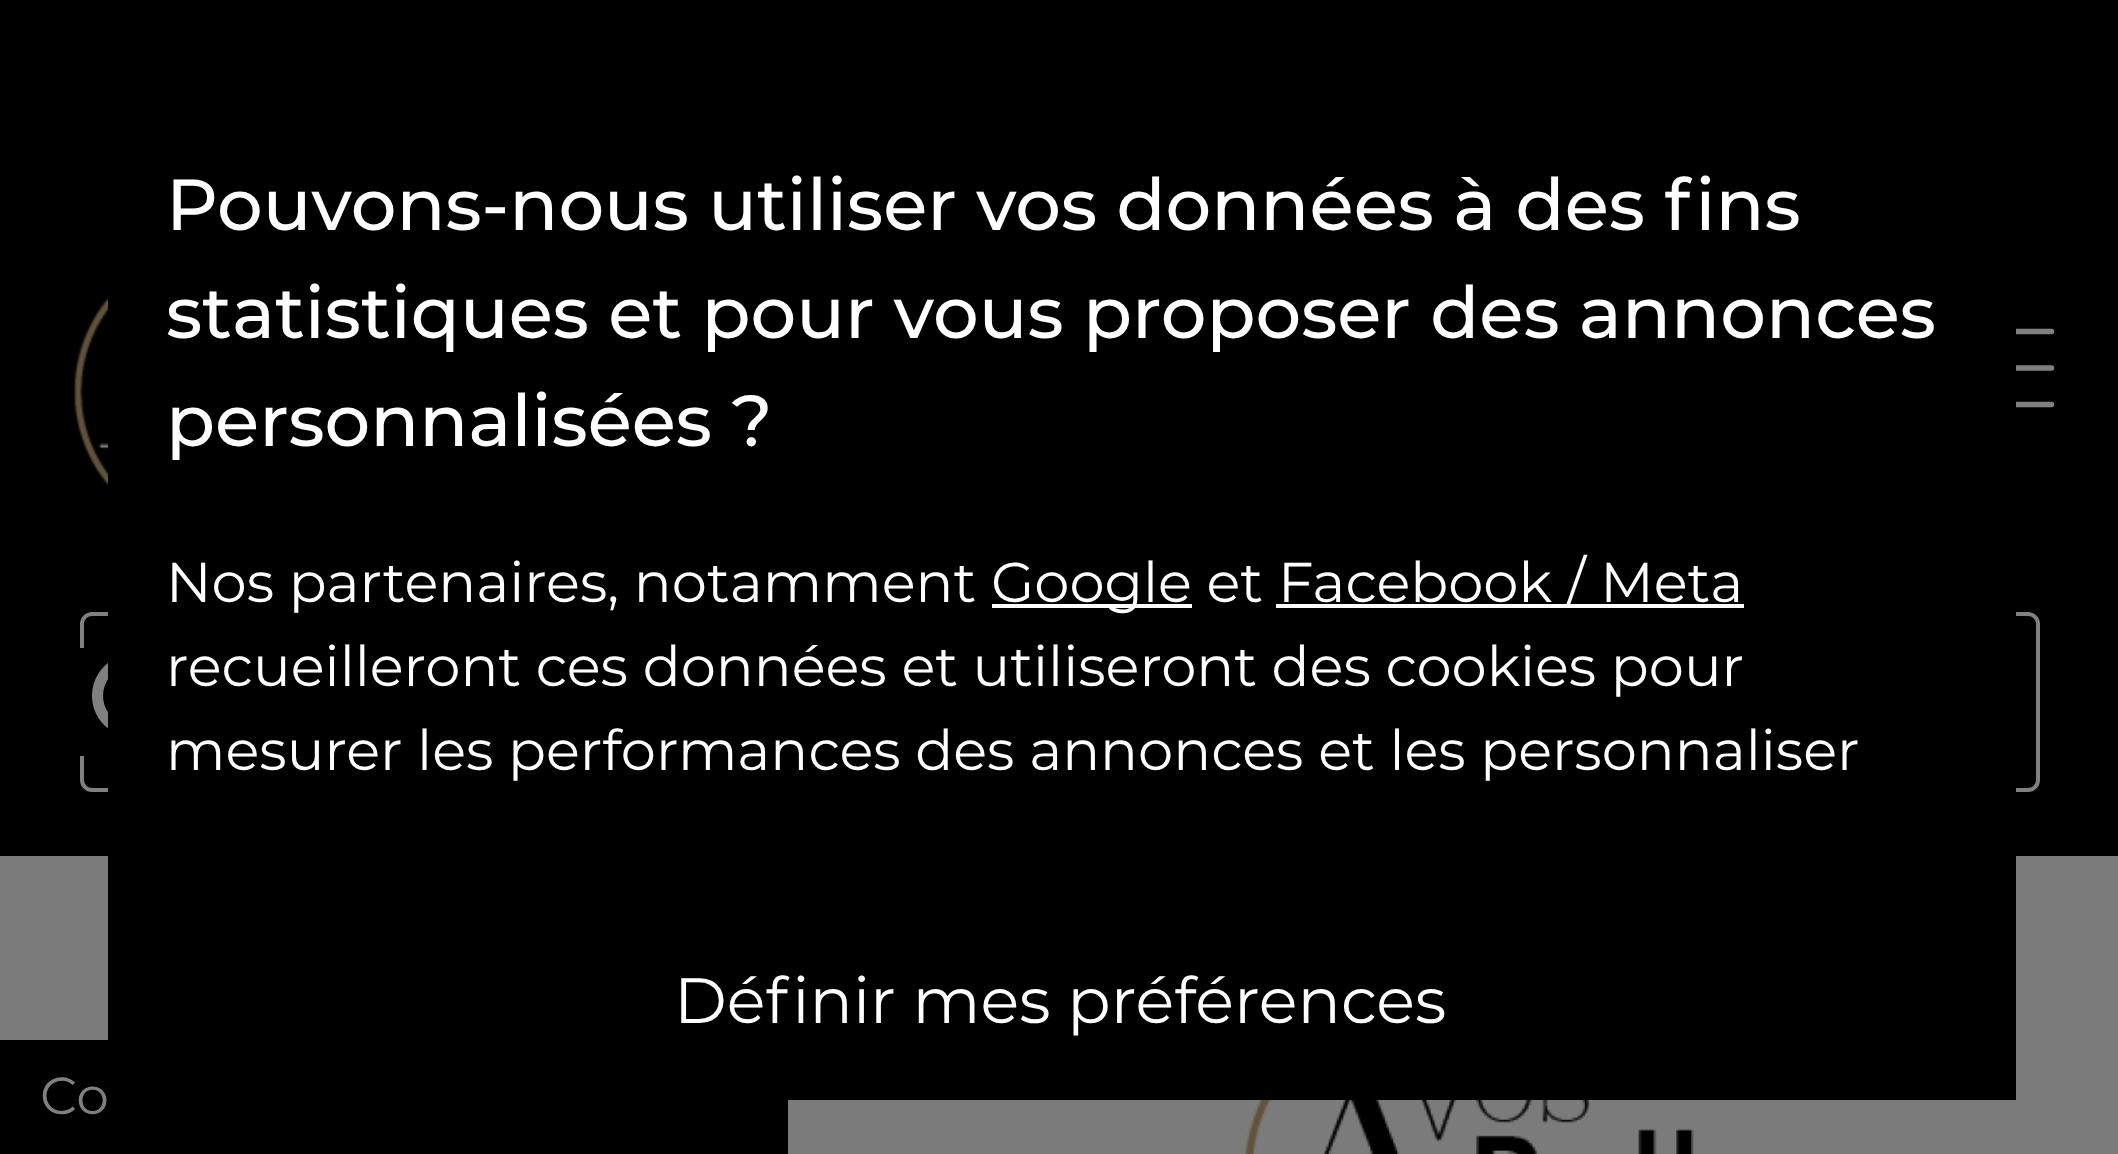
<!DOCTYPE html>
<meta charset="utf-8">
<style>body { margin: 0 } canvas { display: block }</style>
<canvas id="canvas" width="2118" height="1154"></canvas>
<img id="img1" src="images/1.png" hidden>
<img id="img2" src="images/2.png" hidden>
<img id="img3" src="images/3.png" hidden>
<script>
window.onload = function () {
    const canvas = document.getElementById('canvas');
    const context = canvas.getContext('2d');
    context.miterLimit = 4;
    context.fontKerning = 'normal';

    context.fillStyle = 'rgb(123, 123, 123)';
    context.fillRect(0, 0, 2118, 1154);
    context.fillStyle = 'rgb(0, 0, 0)';
    context.fillRect(0, 0, 2118, 856);
    context.drawImage(document.getElementById('img1'), 74, 296, 34, 191);
    context.beginPath();
    context.moveTo(1956.5, 331.5);
    context.lineTo(2051.5, 331.5);
    context.strokeStyle = 'rgb(128, 128, 128)';
    context.lineWidth = 5.5;
    context.lineCap = 'round';
    context.stroke();
    context.beginPath();
    context.moveTo(1956.5, 368);
    context.lineTo(2051.5, 368);
    context.stroke();
    context.beginPath();
    context.moveTo(1956.5, 404.5);
    context.lineTo(2051.5, 404.5);
    context.stroke();
    context.beginPath();
    context.roundRect(82, 614, 1956, 176, 10);
    context.lineWidth = 4;
    context.stroke();
    context.fillRect(80, 648, 4, 108);
    context.drawImage(document.getElementById('img2'), 92, 663, 16, 66);
    context.drawImage(document.getElementById('img3'), 1244, 1100, 450, 54);
    context.fillRect(0, 1040, 788, 114);
    context.fillRect(108, 328, 1908, 772);
    context.fillStyle = 'rgb(255, 255, 255)';
    context.fillRect(992, 604, 200, 4);
    context.fillRect(1276, 604, 468, 4);
    context.font = '500 72px Montserrat';
    context.fillText('Pouvons-nous utiliser vos données à des fins', 166, 230);
    context.fillText('statistiques et pour vous proposer des annonces', 166, 338);
    context.fillText('personnalisées ?', 166, 446);
    context.font = '56px Montserrat';
    context.fillText('Nos partenaires, notamment', 166, 602);
    context.fillText('Google et', 991, 602);
    context.fillText('Facebook / Meta', 1278, 602);
    context.fillText('recueilleront ces données et utiliseront des cookies pour', 166, 686);
    context.fillText('mesurer les performances des annonces et les personnaliser', 166, 770);
    context.font = '64px Montserrat';
    context.fillText('Définir mes préférences', 674, 1023);
    context.font = '52px Montserrat';
    context.fillStyle = 'rgb(128, 128, 128)';
    context.fillText('Co', 40, 1114);
};
</script>
